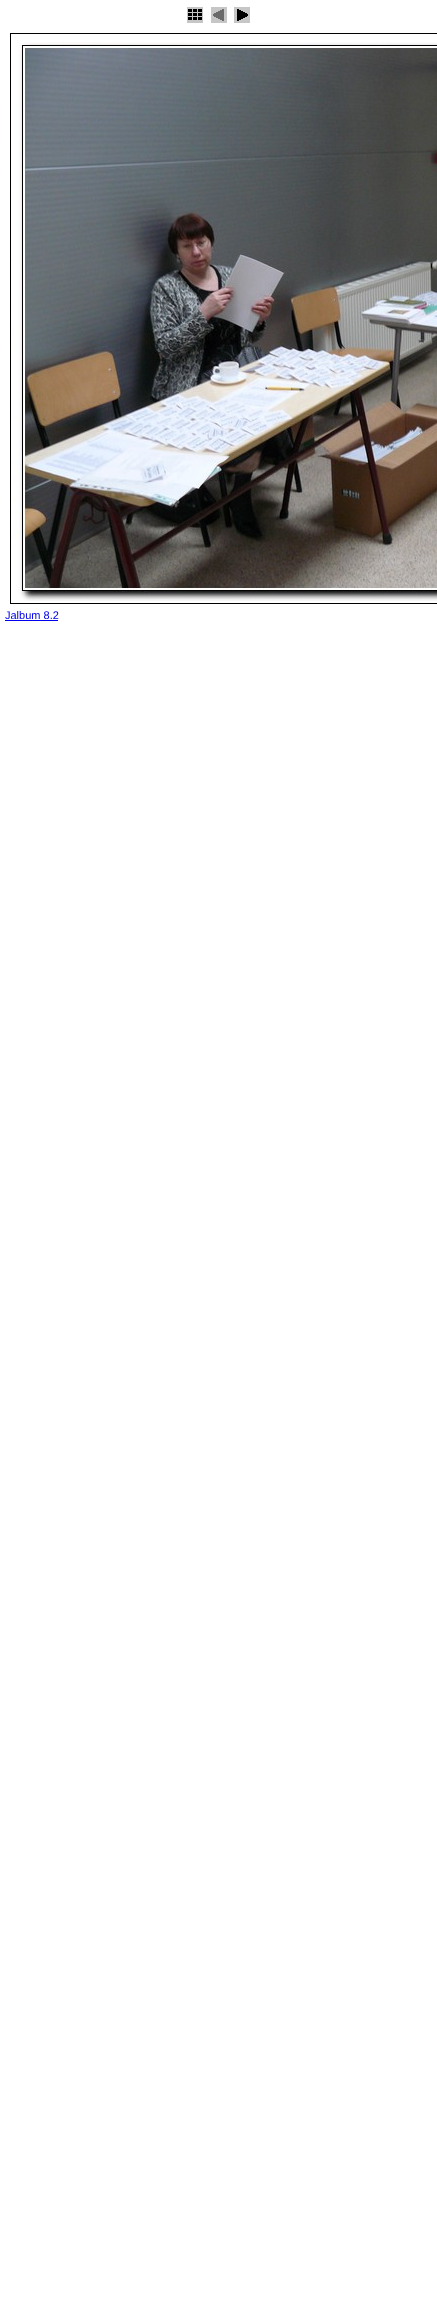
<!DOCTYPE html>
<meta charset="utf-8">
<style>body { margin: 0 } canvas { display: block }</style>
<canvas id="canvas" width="437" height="2302"></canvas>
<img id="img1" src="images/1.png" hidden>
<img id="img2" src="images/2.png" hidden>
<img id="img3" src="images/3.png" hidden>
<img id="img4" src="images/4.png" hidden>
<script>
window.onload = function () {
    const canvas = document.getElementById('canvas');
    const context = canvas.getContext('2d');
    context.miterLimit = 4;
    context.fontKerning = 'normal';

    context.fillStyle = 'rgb(255, 255, 255)';
    context.fillRect(0, 0, 437, 2302);
    context.drawImage(document.getElementById('img1'), 187, 7, 16, 16);
    context.drawImage(document.getElementById('img2'), 211, 7, 16, 16);
    context.drawImage(document.getElementById('img3'), 234, 7, 16, 16);
    context.strokeStyle = 'rgb(0, 0, 0)';
    context.strokeRect(10.5, 33.5, 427, 570);
    context.drawImage(document.getElementById('img4'), 11, 42, 426, 559);
    context.fillStyle = 'rgb(0, 0, 238)';
    context.fillRect(5, 620, 53, 1);
    context.font = '11px Liberation Sans';
    context.fillText('Jalbum 8.2', 5, 619);
};
</script>
